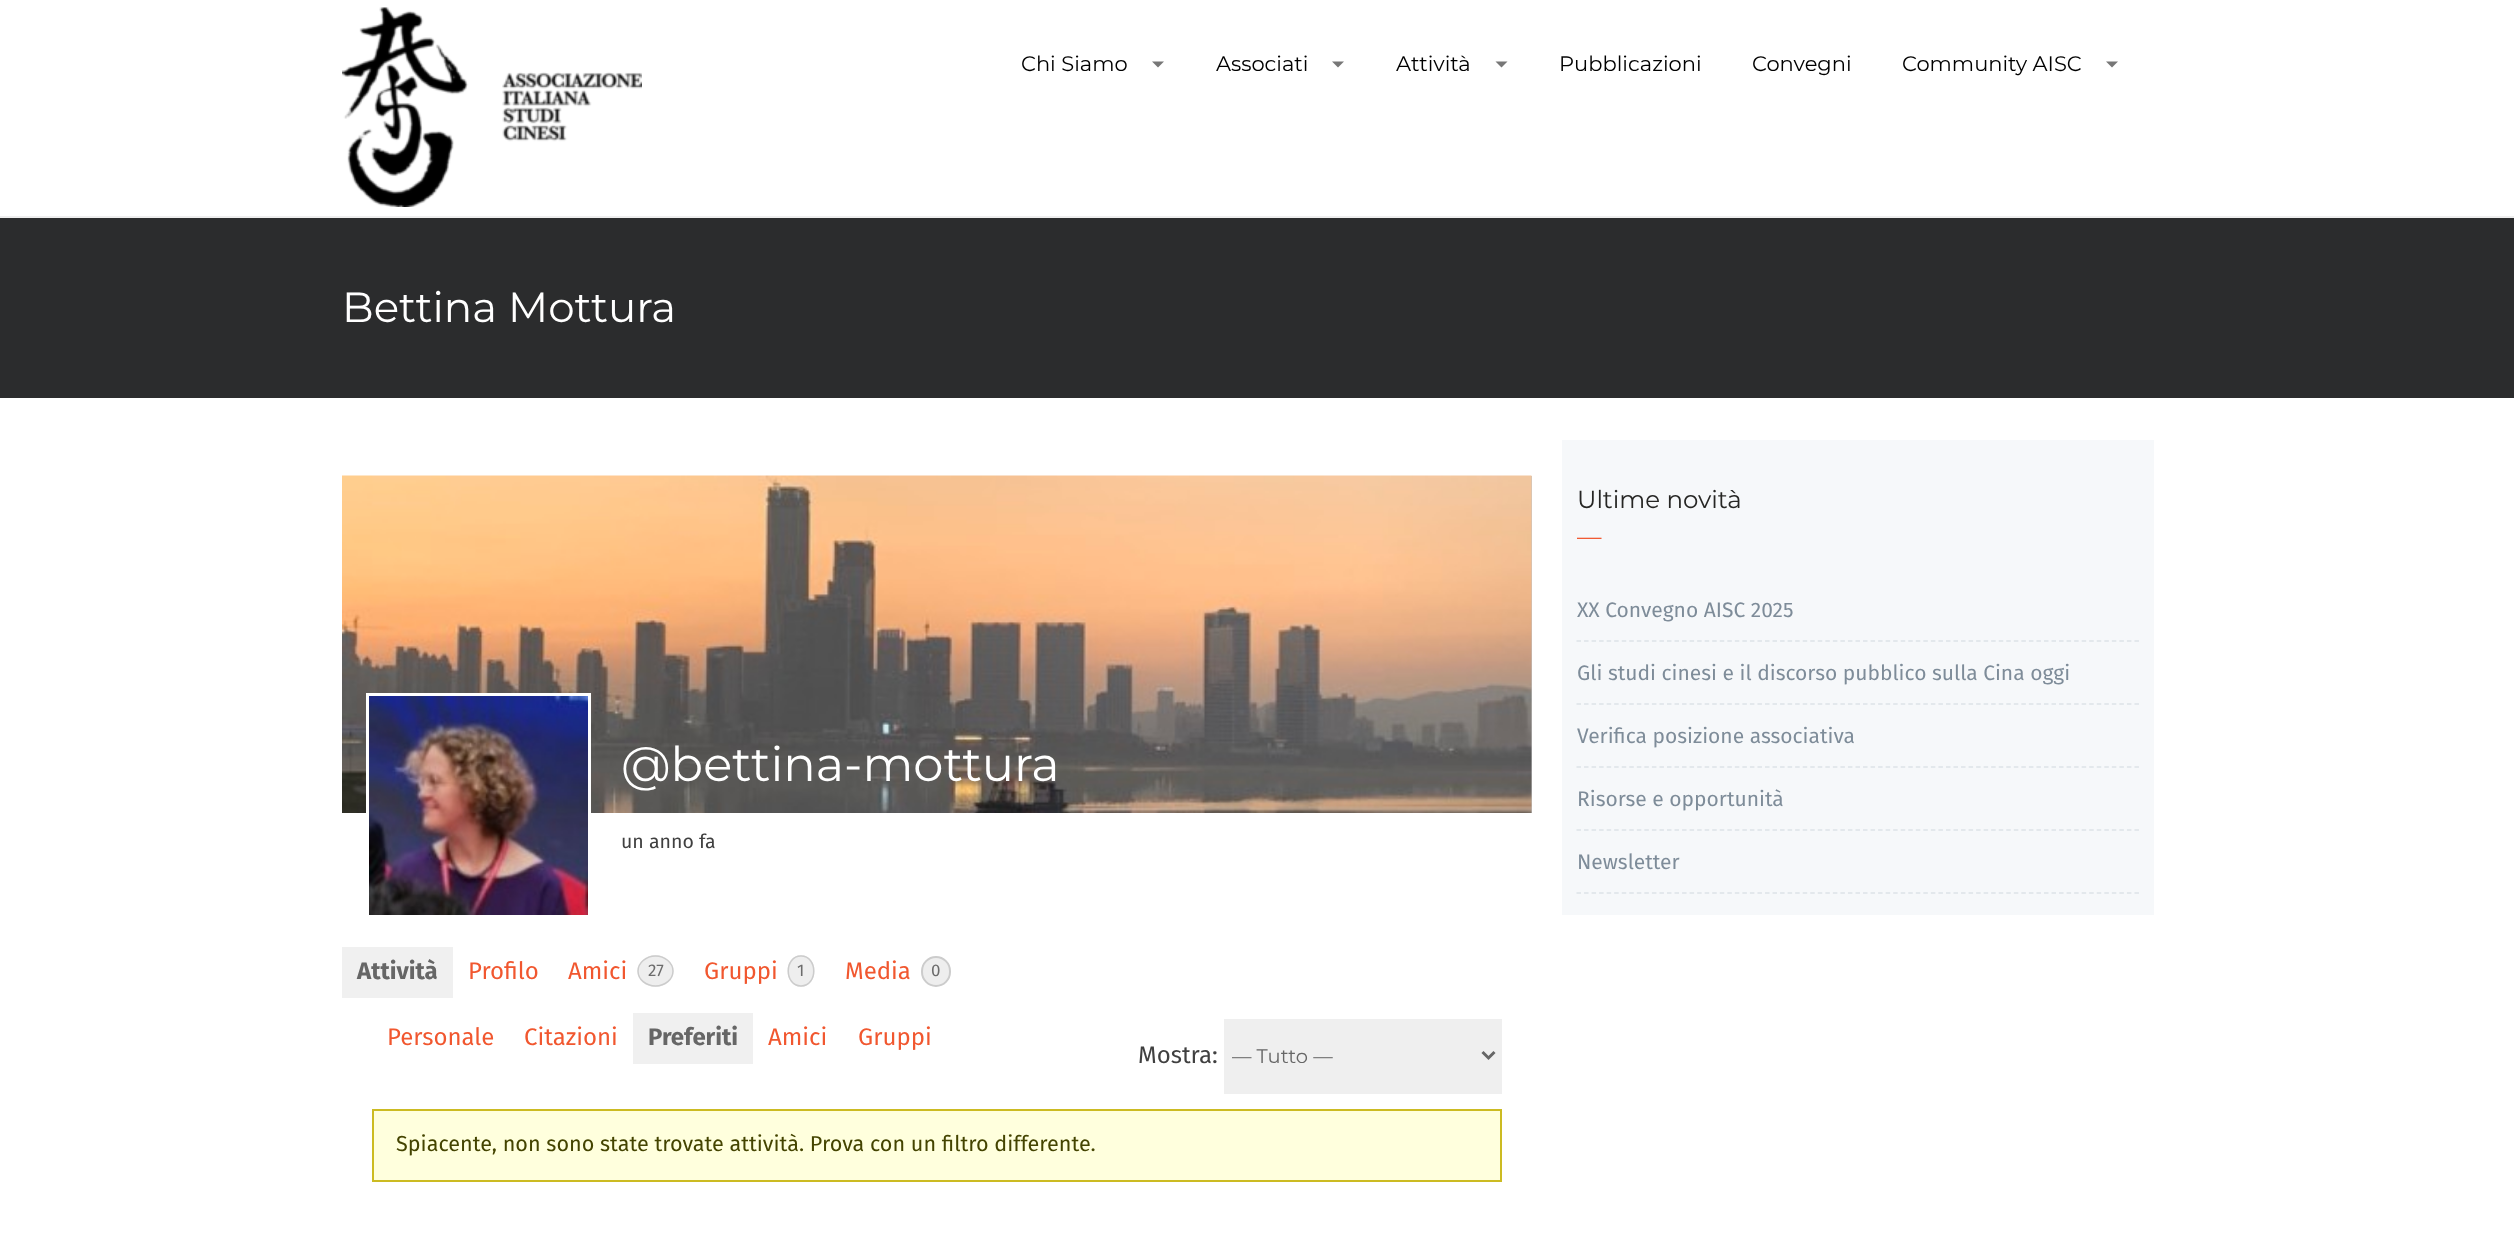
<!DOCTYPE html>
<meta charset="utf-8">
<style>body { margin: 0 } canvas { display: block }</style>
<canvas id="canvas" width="2514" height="1234"></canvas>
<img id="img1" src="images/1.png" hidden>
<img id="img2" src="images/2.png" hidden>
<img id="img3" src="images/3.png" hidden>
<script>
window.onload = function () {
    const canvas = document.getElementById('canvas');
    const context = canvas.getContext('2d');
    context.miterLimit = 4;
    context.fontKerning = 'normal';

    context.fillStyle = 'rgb(255, 255, 255)';
    context.fillRect(0, 0, 2514, 1234);
    context.fillStyle = 'rgb(238, 238, 238)';
    context.fillRect(0, 216, 2514, 2);
    context.drawImage(document.getElementById('img1'), 342, 7, 300, 200);
    context.fillStyle = 'rgb(119, 119, 119)';
    context.beginPath();
    context.moveTo(1152, 61.5);
    context.lineTo(1164, 61.5);
    context.lineTo(1158, 67.5);
    context.closePath();
    context.fill();
    context.beginPath();
    context.moveTo(1332, 61.5);
    context.lineTo(1344, 61.5);
    context.lineTo(1338, 67.5);
    context.closePath();
    context.fill();
    context.beginPath();
    context.moveTo(1495.5, 61.5);
    context.lineTo(1507.5, 61.5);
    context.lineTo(1501.5, 67.5);
    context.closePath();
    context.fill();
    context.beginPath();
    context.moveTo(2106, 61.5);
    context.lineTo(2118, 61.5);
    context.lineTo(2112, 67.5);
    context.closePath();
    context.fill();
    context.fillStyle = 'rgb(43, 44, 45)';
    context.fillRect(0, 218, 2514, 180);
    context.fillStyle = 'rgb(246, 248, 250)';
    context.fillRect(1562, 440, 592, 475);
    context.beginPath();
    context.moveTo(1576.5, 641);
    context.lineTo(2139, 641);
    context.strokeStyle = 'rgb(221, 226, 232)';
    context.lineWidth = 1.5;
    context.setLineDash([4.5, 3.04]);
    context.stroke();
    context.beginPath();
    context.moveTo(1576.5, 704);
    context.lineTo(2139, 704);
    context.stroke();
    context.beginPath();
    context.moveTo(1576.5, 767);
    context.lineTo(2139, 767);
    context.stroke();
    context.beginPath();
    context.moveTo(1576.5, 830);
    context.lineTo(2139, 830);
    context.stroke();
    context.beginPath();
    context.moveTo(1576.5, 893);
    context.lineTo(2139, 893);
    context.stroke();
    context.fillStyle = 'rgb(197, 197, 197)';
    context.fillRect(1531, 476, 1, 337);
    context.drawImage(document.getElementById('img2'), 342, 475, 1190, 338);
    context.strokeStyle = 'rgb(255, 255, 255)';
    context.lineWidth = 3;
    context.setLineDash([]);
    context.strokeRect(367.5, 694.5, 222, 222);
    context.drawImage(document.getElementById('img3'), 369, 696, 219, 219);
    context.fillStyle = 'rgb(240, 240, 240)';
    context.fillRect(342, 947, 111, 51);
    context.fillStyle = 'rgb(238, 238, 238)';
    context.beginPath();
    context.ellipse(655.5, 971, 18, 16, 0, 0, 2 * Math.PI);
    context.fill();
    context.beginPath();
    context.moveTo(655.5, 956);
    context.bezierCurveTo(665, 956, 673, 963, 673, 971);
    context.bezierCurveTo(673, 979.5, 665, 986, 655.5, 986);
    context.bezierCurveTo(646, 986, 638, 979.5, 638, 971);
    context.bezierCurveTo(638, 963, 646, 956, 655.5, 956);
    context.closePath();
    context.strokeStyle = 'rgb(204, 204, 204)';
    context.lineWidth = 1.5;
    context.stroke();
    context.beginPath();
    context.ellipse(801, 971, 13.5, 16, 0, 0, 2 * Math.PI);
    context.fill();
    context.beginPath();
    context.moveTo(801, 956);
    context.bezierCurveTo(818, 956, 818, 986, 801, 986);
    context.bezierCurveTo(784, 986, 784, 956, 801, 956);
    context.closePath();
    context.stroke();
    context.beginPath();
    context.roundRect(922, 957, 28, 29, 14);
    context.fill();
    context.lineWidth = 2;
    context.stroke();
    context.fillStyle = 'rgb(240, 240, 240)';
    context.fillRect(633, 1013, 120, 51);
    context.fillStyle = 'rgb(239, 239, 239)';
    context.fillRect(1224, 1019, 278, 75);
    context.beginPath();
    context.moveTo(1482.5, 1052);
    context.lineTo(1488.5, 1058);
    context.lineTo(1494.5, 1052);
    context.strokeStyle = 'rgb(102, 102, 102)';
    context.lineWidth = 3;
    context.stroke();
    context.fillStyle = 'rgb(255, 255, 221)';
    context.beginPath();
    context.rect(373, 1110, 1128, 71);
    context.fill();
    context.strokeStyle = 'rgb(204, 187, 34)';
    context.lineWidth = 2;
    context.stroke();
    context.font = '21px Montserrat';
    context.fillStyle = 'rgb(0, 0, 0)';
    context.fillText('Chi Siamo', 1021, 71);
    context.fillText('Associati', 1216, 71);
    context.fillText('Attività', 1396, 71);
    context.fillText('Pubblicazioni', 1559, 71);
    context.fillText('Convegni', 1752, 71);
    context.fillText('Community AISC', 1902, 71);
    context.font = '42px Montserrat';
    context.fillStyle = 'rgb(255, 255, 255)';
    context.fillText('Bettina Mottura', 342, 322);
    context.font = '24.5px Montserrat';
    context.fillStyle = 'rgb(38, 38, 36)';
    context.fillText('Ultime novità', 1577, 508);
    context.fillStyle = 'rgb(241, 87, 47)';
    context.fillText('—', 1577, 545);
    context.font = '21px Fira Sans';
    context.fillStyle = 'rgb(126, 140, 153)';
    context.fillText('XX Convegno AISC 2025', 1577, 617);
    context.fillText('Gli studi cinesi e il discorso pubblico sulla Cina oggi', 1577, 680);
    context.fillText('Verifica posizione associativa', 1577, 743);
    context.fillText('Risorse e opportunità', 1577, 806);
    context.fillText('Newsletter', 1577, 869);
    context.font = '48px Montserrat';
    context.fillStyle = 'rgb(255, 255, 255)';
    context.fillText('@bettina-mottura', 621, 781);
    context.font = '19.5px Fira Sans';
    context.fillStyle = 'rgb(64, 64, 64)';
    context.fillText('un anno fa', 621, 848);
    context.font = 'bold 24px Fira Sans';
    context.fillStyle = 'rgb(102, 102, 102)';
    context.fillText('Attività', 357, 979);
    context.font = '24px Fira Sans';
    context.fillStyle = 'rgb(241, 87, 47)';
    context.fillText('Profilo', 468, 979);
    context.fillText('Amici', 568, 979);
    context.font = '17px Fira Sans';
    context.fillStyle = 'rgb(108, 108, 108)';
    context.fillText('27', 648, 976);
    context.font = '24px Fira Sans';
    context.fillStyle = 'rgb(241, 87, 47)';
    context.fillText('Gruppi', 704, 979);
    context.font = '17px Fira Sans';
    context.fillStyle = 'rgb(108, 108, 108)';
    context.fillText('1', 797, 976);
    context.font = '24px Fira Sans';
    context.fillStyle = 'rgb(241, 87, 47)';
    context.fillText('Media', 845, 979);
    context.font = '17px Fira Sans';
    context.fillStyle = 'rgb(108, 108, 108)';
    context.fillText('0', 931, 976);
    context.font = '24px Fira Sans';
    context.fillStyle = 'rgb(241, 87, 47)';
    context.fillText('Personale', 387, 1045);
    context.fillText('Citazioni', 524, 1045);
    context.font = 'bold 24px Fira Sans';
    context.fillStyle = 'rgb(102, 102, 102)';
    context.fillText('Preferiti', 648, 1045);
    context.font = '24px Fira Sans';
    context.fillStyle = 'rgb(241, 87, 47)';
    context.fillText('Amici', 768, 1045);
    context.fillText('Gruppi', 858, 1045);
    context.fillStyle = 'rgb(64, 64, 64)';
    context.fillText('Mostra:', 1138, 1063);
    context.font = '19.5px Montserrat';
    context.fillStyle = 'rgb(102, 102, 102)';
    context.fillText('— Tutto —', 1232, 1063);
    context.font = '21.6px Fira Sans';
    context.fillStyle = 'rgb(68, 68, 0)';
    context.fillText('Spiacente, non sono state trovate attività. Prova con un filtro differente.', 396, 1151);
};
</script>
